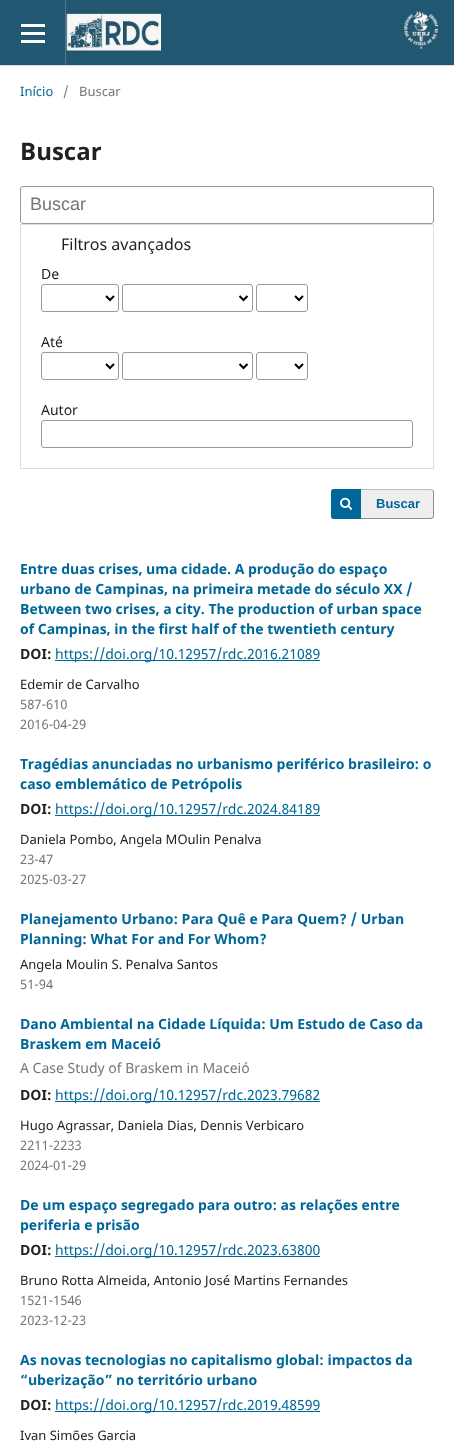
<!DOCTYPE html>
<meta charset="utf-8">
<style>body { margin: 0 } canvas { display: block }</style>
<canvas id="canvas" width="454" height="1456"></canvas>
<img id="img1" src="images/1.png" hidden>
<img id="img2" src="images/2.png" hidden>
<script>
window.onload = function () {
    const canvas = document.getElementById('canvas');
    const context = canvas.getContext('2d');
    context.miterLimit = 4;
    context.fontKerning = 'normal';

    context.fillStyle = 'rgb(255, 255, 255)';
    context.fillRect(0, 0, 454, 1456);
    context.fillStyle = 'rgb(33, 87, 113)';
    context.fillRect(0, 0, 454, 65);
    context.fillStyle = 'rgb(221, 221, 221)';
    context.fillRect(0, 65, 454, 1);
    context.drawImage(document.getElementById('img1'), 65, 10, 374, 42);
    context.fillStyle = 'rgba(255, 255, 255, 0.2)';
    context.fillRect(65, 0, 1, 65);
    context.fillStyle = 'rgb(255, 255, 255)';
    context.fillRect(21, 40, 24, 3);
    context.fillRect(21, 24, 24, 3);
    context.fillRect(21, 32, 24, 3);
    context.beginPath();
    context.roundRect(20.5, 186.5, 413, 37, 2.5);
    context.strokeStyle = 'rgb(153, 153, 153)';
    context.stroke();
    context.strokeStyle = 'rgb(221, 221, 221)';
    context.strokeRect(20.5, 224.5, 413, 244);
    context.beginPath();
    context.roundRect(41.5, 284.5, 77, 27, 2.5);
    context.strokeStyle = 'rgb(153, 153, 153)';
    context.stroke();
    context.beginPath();
    context.moveTo(106, 296);
    context.lineTo(110, 300);
    context.lineTo(114, 296);
    context.strokeStyle = 'rgb(0, 0, 0)';
    context.lineWidth = 2;
    context.stroke();
    context.beginPath();
    context.roundRect(122.5, 284.5, 130, 27, 2.5);
    context.strokeStyle = 'rgb(153, 153, 153)';
    context.lineWidth = 1;
    context.stroke();
    context.beginPath();
    context.moveTo(239.5, 296);
    context.lineTo(243.5, 300);
    context.lineTo(247.5, 296);
    context.strokeStyle = 'rgb(0, 0, 0)';
    context.lineWidth = 2;
    context.stroke();
    context.beginPath();
    context.roundRect(256.5, 284.5, 51, 27, 2.5);
    context.strokeStyle = 'rgb(153, 153, 153)';
    context.lineWidth = 1;
    context.stroke();
    context.beginPath();
    context.moveTo(295, 296);
    context.lineTo(299, 300);
    context.lineTo(303, 296);
    context.strokeStyle = 'rgb(0, 0, 0)';
    context.lineWidth = 2;
    context.stroke();
    context.beginPath();
    context.roundRect(41.5, 352.5, 77, 27, 2.5);
    context.strokeStyle = 'rgb(153, 153, 153)';
    context.lineWidth = 1;
    context.stroke();
    context.beginPath();
    context.moveTo(106, 364);
    context.lineTo(110, 368);
    context.lineTo(114, 364);
    context.strokeStyle = 'rgb(0, 0, 0)';
    context.lineWidth = 2;
    context.stroke();
    context.beginPath();
    context.roundRect(122.5, 352.5, 130, 27, 2.5);
    context.strokeStyle = 'rgb(153, 153, 153)';
    context.lineWidth = 1;
    context.stroke();
    context.beginPath();
    context.moveTo(239.5, 364);
    context.lineTo(243.5, 368);
    context.lineTo(247.5, 364);
    context.strokeStyle = 'rgb(0, 0, 0)';
    context.lineWidth = 2;
    context.stroke();
    context.beginPath();
    context.roundRect(256.5, 352.5, 51, 27, 2.5);
    context.strokeStyle = 'rgb(153, 153, 153)';
    context.lineWidth = 1;
    context.stroke();
    context.beginPath();
    context.moveTo(295, 364);
    context.lineTo(299, 368);
    context.lineTo(303, 364);
    context.strokeStyle = 'rgb(0, 0, 0)';
    context.lineWidth = 2;
    context.stroke();
    context.beginPath();
    context.roundRect(41.5, 420.5, 371, 27, 2.5);
    context.strokeStyle = 'rgb(153, 153, 153)';
    context.lineWidth = 1;
    context.stroke();
    context.fillStyle = 'rgb(238, 238, 238)';
    context.beginPath();
    context.roundRect(331, 489, 103, 30, 3);
    context.fill();
    context.fillStyle = 'rgb(187, 187, 187)';
    context.beginPath();
    context.moveTo(334, 489);
    context.bezierCurveTo(332, 489, 331, 490, 331, 492);
    context.bezierCurveTo(331, 491, 332, 490, 334, 490);
    context.lineTo(431, 490);
    context.lineTo(432, 491);
    context.lineTo(433, 490);
    context.lineTo(431, 489);
    context.closePath();
    context.fill();
    context.fillStyle = 'rgba(0, 0, 0, 0.4)';
    context.beginPath();
    context.moveTo(432.5, 517.5);
    context.bezierCurveTo(433, 517, 433, 516.5, 433, 516);
    context.lineTo(433, 492);
    context.bezierCurveTo(433, 491.5, 433, 491, 432.5, 490.5);
    context.lineTo(433, 490);
    context.bezierCurveTo(434, 490, 434, 491, 434, 492);
    context.lineTo(434, 516);
    context.bezierCurveTo(434, 517, 434, 518, 433, 518);
    context.closePath();
    context.fill();
    context.beginPath();
    context.moveTo(334, 519);
    context.lineTo(431, 519);
    context.lineTo(433, 518);
    context.lineTo(432, 517);
    context.lineTo(431, 518);
    context.lineTo(334, 518);
    context.bezierCurveTo(332, 518, 331, 517, 331, 516);
    context.bezierCurveTo(331, 518, 332, 519, 334, 519);
    context.closePath();
    context.fill();
    context.fillStyle = 'rgb(0, 103, 152)';
    context.beginPath();
    context.roundRect(331, 489, 30, 30, [3, 0, 0, 3]);
    context.fill();
    context.drawImage(document.getElementById('img2'), 340, 497, 12, 13);
    context.fillRect(55, 660, 265, 1);
    context.fillRect(55, 815, 265, 1);
    context.fillRect(55, 1101, 265, 1);
    context.fillRect(55, 1256, 265, 1);
    context.fillRect(55, 1411, 265, 1);
    context.font = '13px Noto Sans';
    context.fillText('Início', 20, 96);
    context.fillStyle = 'rgb(117, 117, 117)';
    context.fillText('/', 63, 96);
    context.fillText('Buscar', 79, 96);
    context.font = 'bold 24px Noto Sans';
    context.fillStyle = 'rgb(33, 33, 33)';
    context.fillText('Buscar', 20, 160);
    context.font = '18px Liberation Sans';
    context.fillStyle = 'rgb(117, 117, 117)';
    context.fillText('Buscar', 30, 210);
    context.font = '16px Noto Sans';
    context.fillStyle = 'rgb(33, 33, 33)';
    context.fillText('Filtros avançados', 61, 250);
    context.font = '14px Noto Sans';
    context.fillText('De', 41, 279);
    context.fillText('Até', 41, 347);
    context.fillText('Autor', 41, 415);
    context.font = 'bold 13px Liberation Sans';
    context.fillStyle = 'rgb(0, 103, 152)';
    context.fillText('Buscar', 376, 508);
    context.font = 'bold 14px Noto Sans';
    context.fillText('Entre duas crises, uma cidade. A produção do espaço', 20, 574);
    context.fillText('urbano de Campinas, na primeira metade do século XX /', 20, 594);
    context.fillText('Between two crises, a city. The production of urban space', 20, 614);
    context.fillText('of Campinas, in the first half of the twentieth century', 20, 634);
    context.fillStyle = 'rgb(33, 33, 33)';
    context.fillText('DOI:', 20, 659);
    context.font = '14px Noto Sans';
    context.fillStyle = 'rgb(0, 103, 152)';
    context.fillText('https://doi.org/10.12957/rdc.2016.21089', 55, 659);
    context.font = '13px Noto Sans';
    context.fillStyle = 'rgb(33, 33, 33)';
    context.fillText('Edemir de Carvalho', 20, 689);
    context.fillStyle = 'rgb(117, 117, 117)';
    context.fillText('587-610', 20, 709);
    context.fillText('2016-04-29', 20, 729);
    context.font = 'bold 14px Noto Sans';
    context.fillStyle = 'rgb(0, 103, 152)';
    context.fillText('Tragédias anunciadas no urbanismo periférico brasileiro: o', 20, 769);
    context.fillText('caso emblemático de Petrópolis', 20, 789);
    context.fillStyle = 'rgb(33, 33, 33)';
    context.fillText('DOI:', 20, 814);
    context.font = '14px Noto Sans';
    context.fillStyle = 'rgb(0, 103, 152)';
    context.fillText('https://doi.org/10.12957/rdc.2024.84189', 55, 814);
    context.font = '13px Noto Sans';
    context.fillStyle = 'rgb(33, 33, 33)';
    context.fillText('Daniela Pombo, Angela MOulin Penalva', 20, 844);
    context.fillStyle = 'rgb(117, 117, 117)';
    context.fillText('23-47', 20, 864);
    context.fillText('2025-03-27', 20, 884);
    context.font = 'bold 14px Noto Sans';
    context.fillStyle = 'rgb(0, 103, 152)';
    context.fillText('Planejamento Urbano: Para Quê e Para Quem? / Urban', 20, 924);
    context.fillText('Planning: What For and For Whom?', 20, 944);
    context.font = '13px Noto Sans';
    context.fillStyle = 'rgb(33, 33, 33)';
    context.fillText('Angela Moulin S. Penalva Santos', 20, 969);
    context.fillStyle = 'rgb(117, 117, 117)';
    context.fillText('51-94', 20, 989);
    context.font = 'bold 14px Noto Sans';
    context.fillStyle = 'rgb(0, 103, 152)';
    context.fillText('Dano Ambiental na Cidade Líquida: Um Estudo de Caso da', 20, 1029);
    context.fillText('Braskem em Maceió', 20, 1049);
    context.font = '14px Noto Sans';
    context.fillStyle = 'rgb(117, 117, 117)';
    context.fillText('A Case Study of Braskem in Maceió', 20, 1073);
    context.font = 'bold 14px Noto Sans';
    context.fillStyle = 'rgb(33, 33, 33)';
    context.fillText('DOI:', 20, 1100);
    context.font = '14px Noto Sans';
    context.fillStyle = 'rgb(0, 103, 152)';
    context.fillText('https://doi.org/10.12957/rdc.2023.79682', 55, 1100);
    context.font = '13px Noto Sans';
    context.fillStyle = 'rgb(33, 33, 33)';
    context.fillText('Hugo Agrassar, Daniela Dias, Dennis Verbicaro', 20, 1130);
    context.fillStyle = 'rgb(117, 117, 117)';
    context.fillText('2211-2233', 20, 1150);
    context.fillText('2024-01-29', 20, 1170);
    context.font = 'bold 14px Noto Sans';
    context.fillStyle = 'rgb(0, 103, 152)';
    context.fillText('De um espaço segregado para outro: as relações entre', 20, 1210);
    context.fillText('periferia e prisão', 20, 1230);
    context.fillStyle = 'rgb(33, 33, 33)';
    context.fillText('DOI:', 20, 1255);
    context.font = '14px Noto Sans';
    context.fillStyle = 'rgb(0, 103, 152)';
    context.fillText('https://doi.org/10.12957/rdc.2023.63800', 55, 1255);
    context.font = '13px Noto Sans';
    context.fillStyle = 'rgb(33, 33, 33)';
    context.fillText('Bruno Rotta Almeida, Antonio José Martins Fernandes', 20, 1285);
    context.fillStyle = 'rgb(117, 117, 117)';
    context.fillText('1521-1546', 20, 1305);
    context.fillText('2023-12-23', 20, 1325);
    context.font = 'bold 14px Noto Sans';
    context.fillStyle = 'rgb(0, 103, 152)';
    context.fillText('As novas tecnologias no capitalismo global: impactos da', 20, 1365);
    context.fillText('“uberização” no território urbano', 20, 1385);
    context.fillStyle = 'rgb(33, 33, 33)';
    context.fillText('DOI:', 20, 1410);
    context.font = '14px Noto Sans';
    context.fillStyle = 'rgb(0, 103, 152)';
    context.fillText('https://doi.org/10.12957/rdc.2019.48599', 55, 1410);
    context.font = '13px Noto Sans';
    context.fillStyle = 'rgb(33, 33, 33)';
    context.fillText('Ivan Simões Garcia', 20, 1440);
};
</script>
